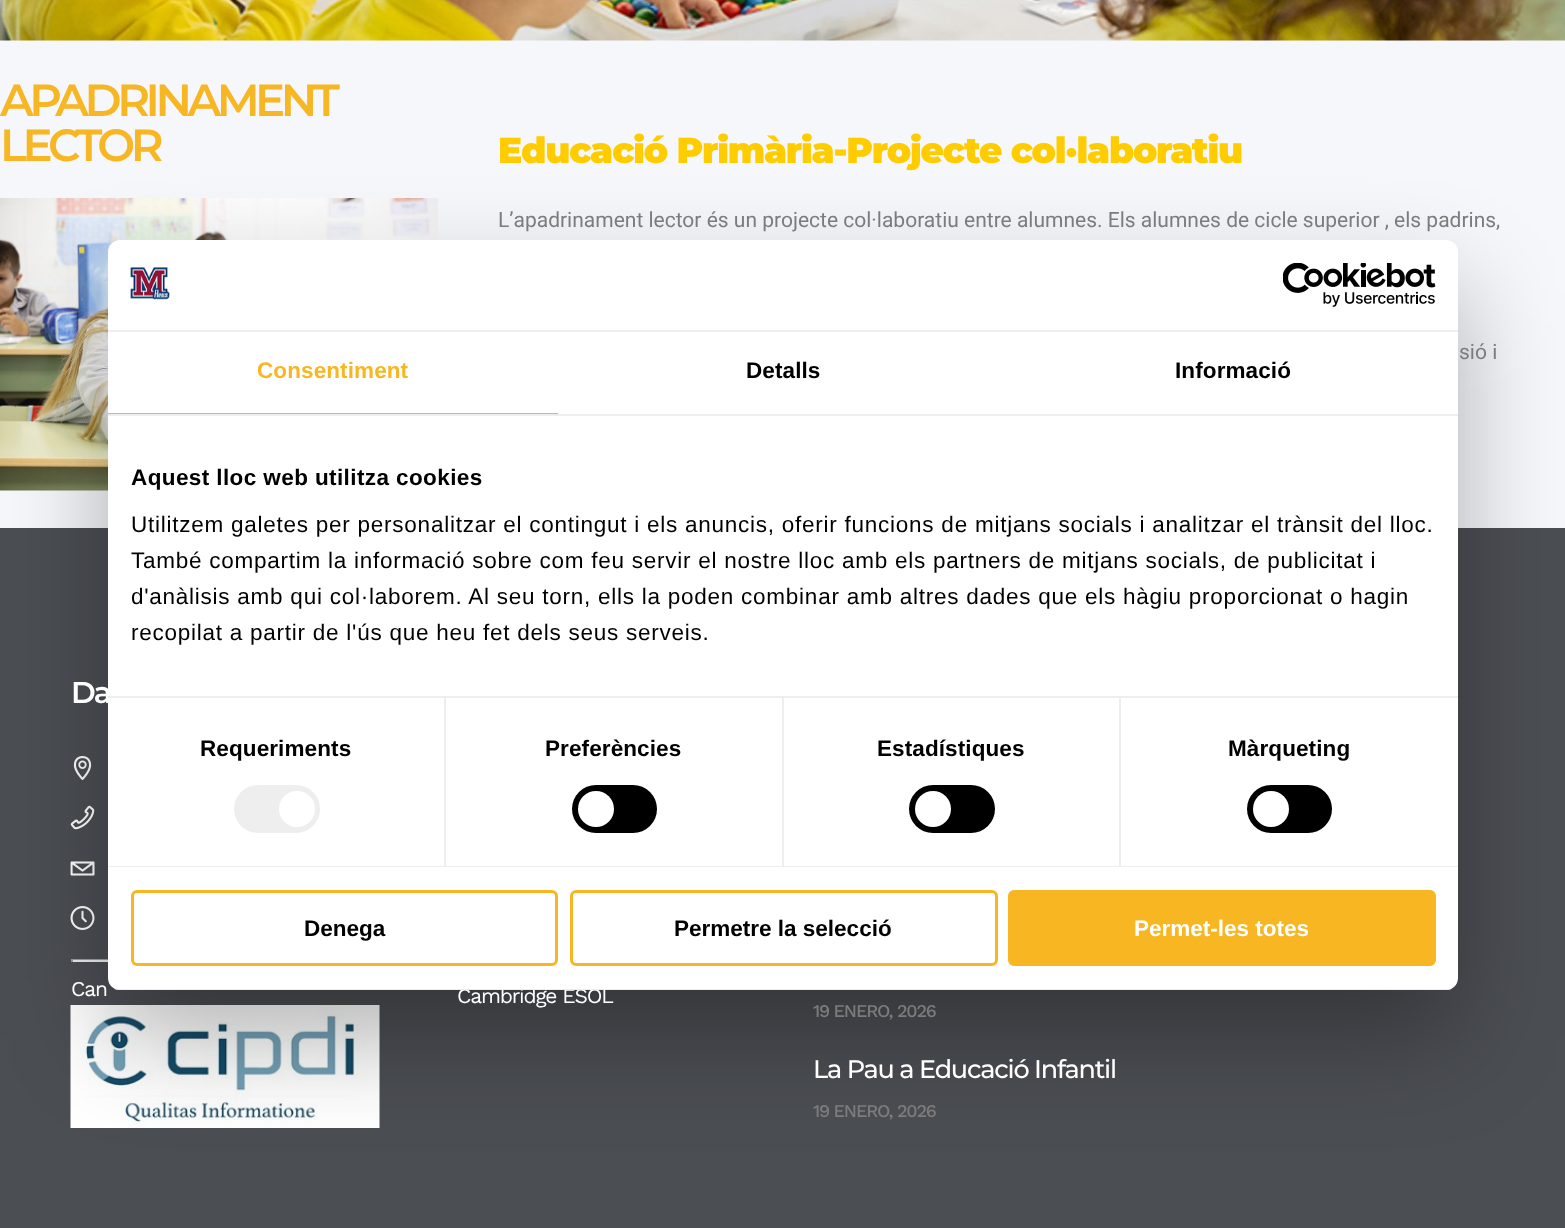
<!DOCTYPE html>
<meta charset="utf-8">
<style>body { margin: 0 } canvas { display: block }</style>
<canvas id="canvas" width="1565" height="1228"></canvas>
<img id="img1" src="images/1.png" hidden>
<img id="img2" src="images/2.png" hidden>
<img id="img3" src="images/3.png" hidden>
<img id="img4" src="images/4.png" hidden>
<img id="img5" src="images/5.png" hidden>
<img id="img6" src="images/6.png" hidden>
<img id="img7" src="images/7.png" hidden>
<img id="img8" src="images/8.png" hidden>
<img id="img9" src="images/9.png" hidden>
<script>
window.onload = function () {
    const canvas = document.getElementById('canvas');
    const context = canvas.getContext('2d');
    context.miterLimit = 4;
    context.fontKerning = 'normal';

    context.fillStyle = 'rgb(246, 247, 251)';
    context.fillRect(0, 0, 1565, 1228);
    context.drawImage(document.getElementById('img1'), 0, 0, 1565, 41);
    context.drawImage(document.getElementById('img2'), 0, 198, 438, 293);
    context.fillStyle = 'rgb(75, 78, 83)';
    context.fillRect(0, 528, 1565, 700);
    context.drawImage(document.getElementById('img3'), 73, 756, 19, 24);
    context.drawImage(document.getElementById('img4'), 70, 805, 25, 25);
    context.drawImage(document.getElementById('img5'), 70, 861, 25, 15);
    context.drawImage(document.getElementById('img6'), 70, 906, 25, 24);
    context.fillStyle = 'rgb(159, 159, 159)';
    context.fillRect(71, 959, 37, 1);
    context.fillStyle = 'rgb(238, 238, 238)';
    context.fillRect(71, 960, 37, 2);
    context.fillStyle = 'rgb(159, 159, 159)';
    context.fillRect(71, 959, 2, 3);
    context.drawImage(document.getElementById('img7'), 70, 1005, 310, 123);
    context.fillStyle = 'rgba(0, 0, 0, 0.3)';
    context.filter = 'blur(51px)';
    context.beginPath();
    context.roundRect(108, 288, 1350, 750, 12);
    context.fill();
    context.filter = 'none';
    context.fillStyle = 'rgb(255, 255, 255)';
    context.beginPath();
    context.roundRect(108, 240, 1350, 750, 12);
    context.fill();
    context.fillStyle = 'rgb(238, 238, 238)';
    context.fillRect(108, 330, 1350, 2);
    context.drawImage(document.getElementById('img8'), 130, 267, 40, 33);
    context.drawImage(document.getElementById('img9'), 1283, 263, 153, 44);
    context.fillRect(108, 414, 1350, 2);
    context.fillStyle = 'rgb(247, 182, 34)';
    context.fillRect(108, 413, 450, 1);
    context.fillStyle = 'rgb(238, 238, 238)';
    context.fillRect(108, 866, 1350, 1);
    context.fillRect(444, 698, 2, 168);
    context.beginPath();
    context.roundRect(234, 785, 86, 48, 24);
    context.fill();
    context.fillStyle = 'rgb(255, 255, 255)';
    context.beginPath();
    context.arc(297, 809, 18, 0, 2 * Math.PI);
    context.fill();
    context.fillStyle = 'rgb(238, 238, 238)';
    context.fillRect(782, 698, 2, 168);
    context.fillStyle = 'rgb(0, 0, 0)';
    context.beginPath();
    context.roundRect(572, 785, 85, 48, 24);
    context.fill();
    context.fillStyle = 'rgb(255, 255, 255)';
    context.beginPath();
    context.arc(596, 809, 18, 0, 2 * Math.PI);
    context.fill();
    context.fillStyle = 'rgb(238, 238, 238)';
    context.fillRect(1119, 698, 2, 168);
    context.fillStyle = 'rgb(0, 0, 0)';
    context.beginPath();
    context.roundRect(909, 785, 86, 48, 24);
    context.fill();
    context.fillStyle = 'rgb(255, 255, 255)';
    context.beginPath();
    context.arc(933, 809, 18, 0, 2 * Math.PI);
    context.fill();
    context.fillStyle = 'rgb(0, 0, 0)';
    context.beginPath();
    context.roundRect(1247, 785, 85, 48, 24);
    context.fill();
    context.fillStyle = 'rgb(255, 255, 255)';
    context.beginPath();
    context.arc(1271, 809, 18, 0, 2 * Math.PI);
    context.fill();
    context.beginPath();
    context.roundRect(132.5, 891.5, 424, 73, 4.5);
    context.strokeStyle = 'rgb(247, 182, 34)';
    context.lineWidth = 3;
    context.stroke();
    context.beginPath();
    context.roundRect(571.5, 891.5, 425, 73, 4.5);
    context.stroke();
    context.fillStyle = 'rgb(247, 182, 34)';
    context.beginPath();
    context.roundRect(1009.5, 891.5, 425, 73, 4.5);
    context.fill();
    context.stroke();
    context.letterSpacing = '-4.5px';
    context.font = '600 45px Montserrat';
    context.fillStyle = 'rgb(247, 182, 35)';
    context.fillText('APADRINAMENT', 0, 116);
    context.fillText('LECTOR', 0, 161);
    context.letterSpacing = '-1.2px';
    context.font = '900 36px Montserrat';
    context.fillStyle = 'rgb(255, 204, 0)';
    context.fillText('Educació Primària-Projecte col·laboratiu', 498, 163);
    context.letterSpacing = '0px';
    context.font = '21px Roboto';
    context.fillStyle = 'rgb(124, 124, 124)';
    context.fillText('L’apadrinament lector és un projecte col·laboratiu entre alumnes. Els alumnes de cicle superior , els padrins,', 498, 227);
    context.fillText('sió i', 1459, 359);
    context.letterSpacing = '-2px';
    context.font = '600 30px Montserrat';
    context.fillStyle = 'rgb(255, 255, 255)';
    context.fillText('Da', 71, 703);
    context.letterSpacing = '-1.2px';
    context.font = '21px Work Sans';
    context.fillText('Can', 71, 996);
    context.fillText('Cambridge ESOL', 457, 1003);
    context.font = '500 18px Work Sans';
    context.fillStyle = 'rgb(124, 124, 124)';
    context.fillText('19 ENERO, 2026', 813, 1017);
    context.font = '500 25.5px Montserrat';
    context.fillStyle = 'rgb(255, 255, 255)';
    context.fillText('La Pau a Educació Infantil', 813, 1078);
    context.font = '500 18px Work Sans';
    context.fillStyle = 'rgb(124, 124, 124)';
    context.fillText('19 ENERO, 2026', 813, 1117);
    context.letterSpacing = '0.1px';
    context.font = 'bold 22.5px Liberation Sans';
    context.fillStyle = 'rgb(247, 182, 35)';
    context.fillText('Consentiment', 257, 378);
    context.fillStyle = 'rgb(0, 0, 0)';
    context.fillText('Detalls', 746, 378);
    context.fillText('Informació', 1175, 378);
    context.fillStyle = 'rgb(238, 238, 238)';
    context.fillRect(108, 696, 1350, 2);
    context.letterSpacing = '0.4px';
    context.fillStyle = 'rgb(0, 0, 0)';
    context.fillText('Aquest lloc web utilitza cookies', 131, 485);
    context.letterSpacing = '0.75px';
    context.font = '22.5px Liberation Sans';
    context.fillText('Utilitzem galetes per personalitzar el contingut i els anuncis, oferir funcions de mitjans socials i analitzar el trànsit del lloc.', 131, 532);
    context.fillText('També compartim la informació sobre com feu servir el nostre lloc amb els partners de mitjans socials, de publicitat i', 131, 568);
    context.fillText('d\'anàlisis amb qui col·laborem. Al seu torn, ells la poden combinar amb altres dades que els hàgiu proporcionat o hagin', 131, 604);
    context.fillText('recopilat a partir de l\'ús que heu fet dels seus serveis.', 131, 640);
    context.letterSpacing = '0.1px';
    context.font = 'bold 22.5px Liberation Sans';
    context.fillText('Requeriments', 200, 756);
    context.fillText('Preferències', 545, 756);
    context.fillText('Estadístiques', 877, 756);
    context.fillText('Màrqueting', 1228, 756);
    context.save();
    context.beginPath();
    context.roundRect(108, 240, 1350, 750, 12);
    context.clip();
    context.fillStyle = 'rgb(238, 238, 238)';
    context.fillRect(108, 989, 1350, 1);
    context.restore();
    context.letterSpacing = '0px';
    context.fillText('Denega', 304, 936);
    context.fillText('Permetre la selecció', 674, 936);
    context.fillStyle = 'rgb(255, 255, 255)';
    context.fillText('Permet-les totes', 1134, 936);
};
</script>
